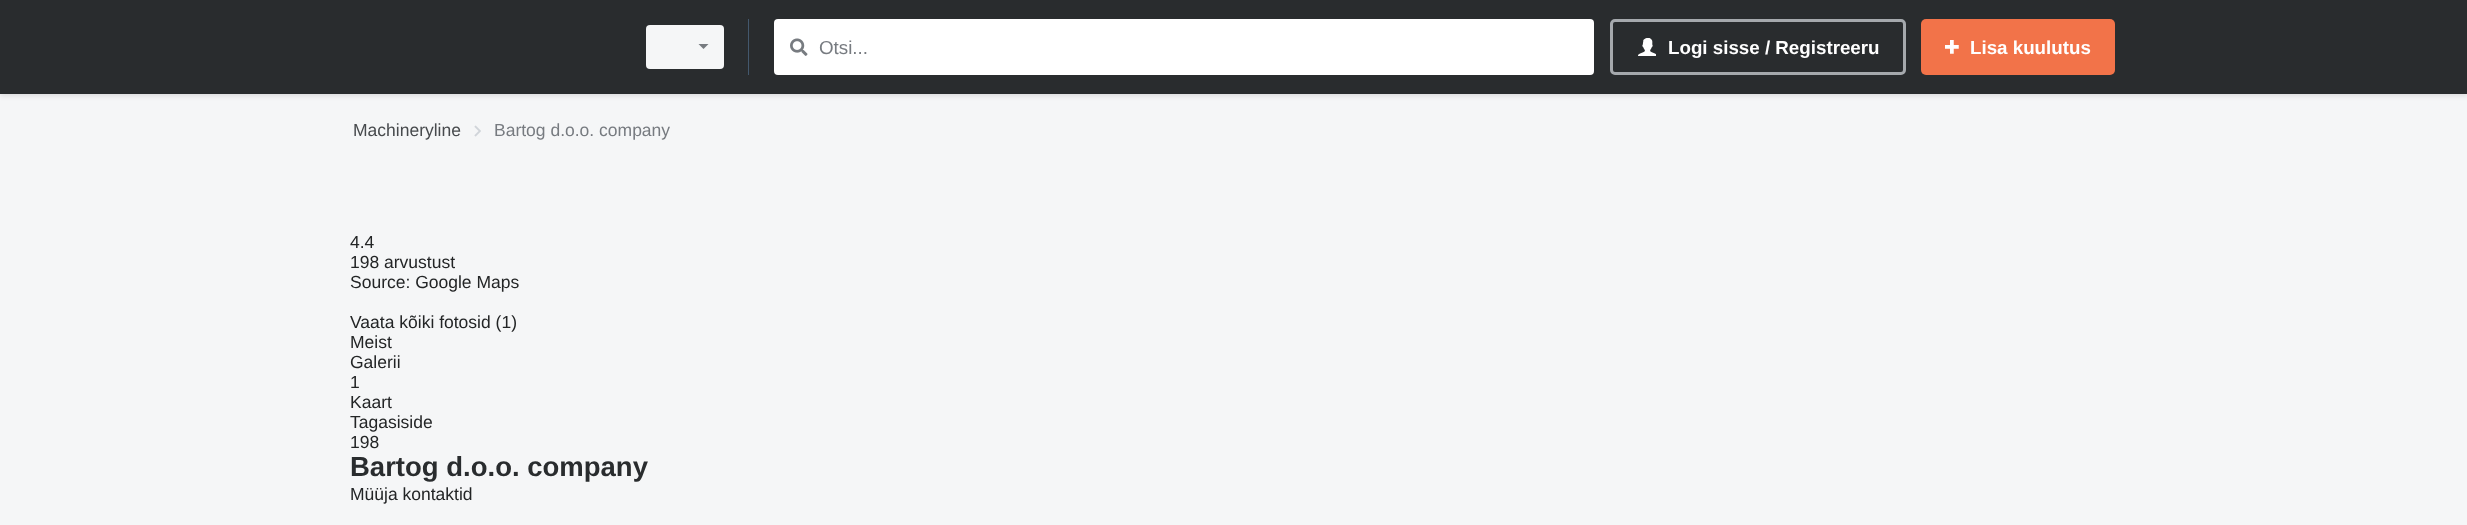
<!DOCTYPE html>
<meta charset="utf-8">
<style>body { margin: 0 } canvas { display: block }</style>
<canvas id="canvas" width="2467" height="525"></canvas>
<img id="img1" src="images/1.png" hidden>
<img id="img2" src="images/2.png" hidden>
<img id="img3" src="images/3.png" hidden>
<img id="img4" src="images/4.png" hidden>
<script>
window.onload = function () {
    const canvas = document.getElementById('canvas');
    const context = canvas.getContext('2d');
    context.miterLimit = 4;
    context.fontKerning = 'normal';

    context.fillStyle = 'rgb(245, 246, 247)';
    context.fillRect(0, 0, 2467, 525);
    context.fillStyle = 'rgba(0, 0, 0, 0.1)';
    context.filter = 'blur(2.5px)';
    context.beginPath();
    context.rect(0, 3, 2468, 93);
    context.fill();
    context.filter = 'none';
    context.fillStyle = 'rgb(41, 44, 46)';
    context.fillRect(0, 0, 2467, 94);
    context.fillStyle = 'rgb(245, 246, 247)';
    context.beginPath();
    context.roundRect(646, 25, 78, 44, 4);
    context.fill();
    context.fillStyle = 'rgb(119, 123, 128)';
    context.beginPath();
    context.moveTo(698.5, 44);
    context.lineTo(708.5, 44);
    context.lineTo(703.5, 49);
    context.closePath();
    context.fill();
    context.fillStyle = 'rgb(67, 88, 109)';
    context.fillRect(748, 19, 1, 56);
    context.fillStyle = 'rgb(255, 255, 255)';
    context.beginPath();
    context.roundRect(774, 19, 820, 56, 4);
    context.fill();
    context.drawImage(document.getElementById('img1'), 790, 38, 18, 18);
    context.beginPath();
    context.roundRect(1611.5, 20.5, 293, 53, 3.5);
    context.strokeStyle = 'rgb(165, 169, 173)';
    context.lineWidth = 3;
    context.stroke();
    context.drawImage(document.getElementById('img2'), 1638, 38, 18, 18);
    context.fillStyle = 'rgb(242, 115, 73)';
    context.beginPath();
    context.roundRect(1921, 19, 194, 56, 5);
    context.fill();
    context.drawImage(document.getElementById('img3'), 1945, 40, 14, 14);
    context.drawImage(document.getElementById('img4'), 474, 125, 7, 12);
    context.font = '18.75px Liberation Sans';
    context.fillStyle = 'rgb(119, 123, 128)';
    context.fillText('Otsi...', 819, 54);
    context.font = 'bold 18.75px Liberation Sans';
    context.fillStyle = 'rgb(255, 255, 255)';
    context.fillText('Logi sisse / Registreeru', 1668, 54);
    context.fillText('Lisa kuulutus', 1970, 54);
    context.font = '17.5px Liberation Sans';
    context.fillStyle = 'rgb(71, 74, 77)';
    context.fillText('Machineryline', 353, 136);
    context.fillStyle = 'rgb(119, 123, 128)';
    context.fillText('Bartog d.o.o. company', 494, 136);
    context.fillStyle = 'rgb(35, 37, 38)';
    context.fillText('4.4', 350, 248);
    context.fillText('198 arvustust', 350, 268);
    context.fillText('Source: Google Maps', 350, 288);
    context.fillText('Vaata kõiki fotosid (1)', 350, 328);
    context.fillText('Meist', 350, 348);
    context.fillText('Galerii', 350, 368);
    context.fillText('1', 350, 388);
    context.fillText('Kaart', 350, 408);
    context.fillText('Tagasiside', 350, 428);
    context.fillText('198', 350, 448);
    context.font = 'bold 27.5px Liberation Sans';
    context.fillStyle = 'rgb(41, 44, 46)';
    context.fillText('Bartog d.o.o. company', 350, 476);
    context.font = '17.5px Liberation Sans';
    context.fillStyle = 'rgb(35, 37, 38)';
    context.fillText('Müüja kontaktid', 350, 500);
};
</script>
